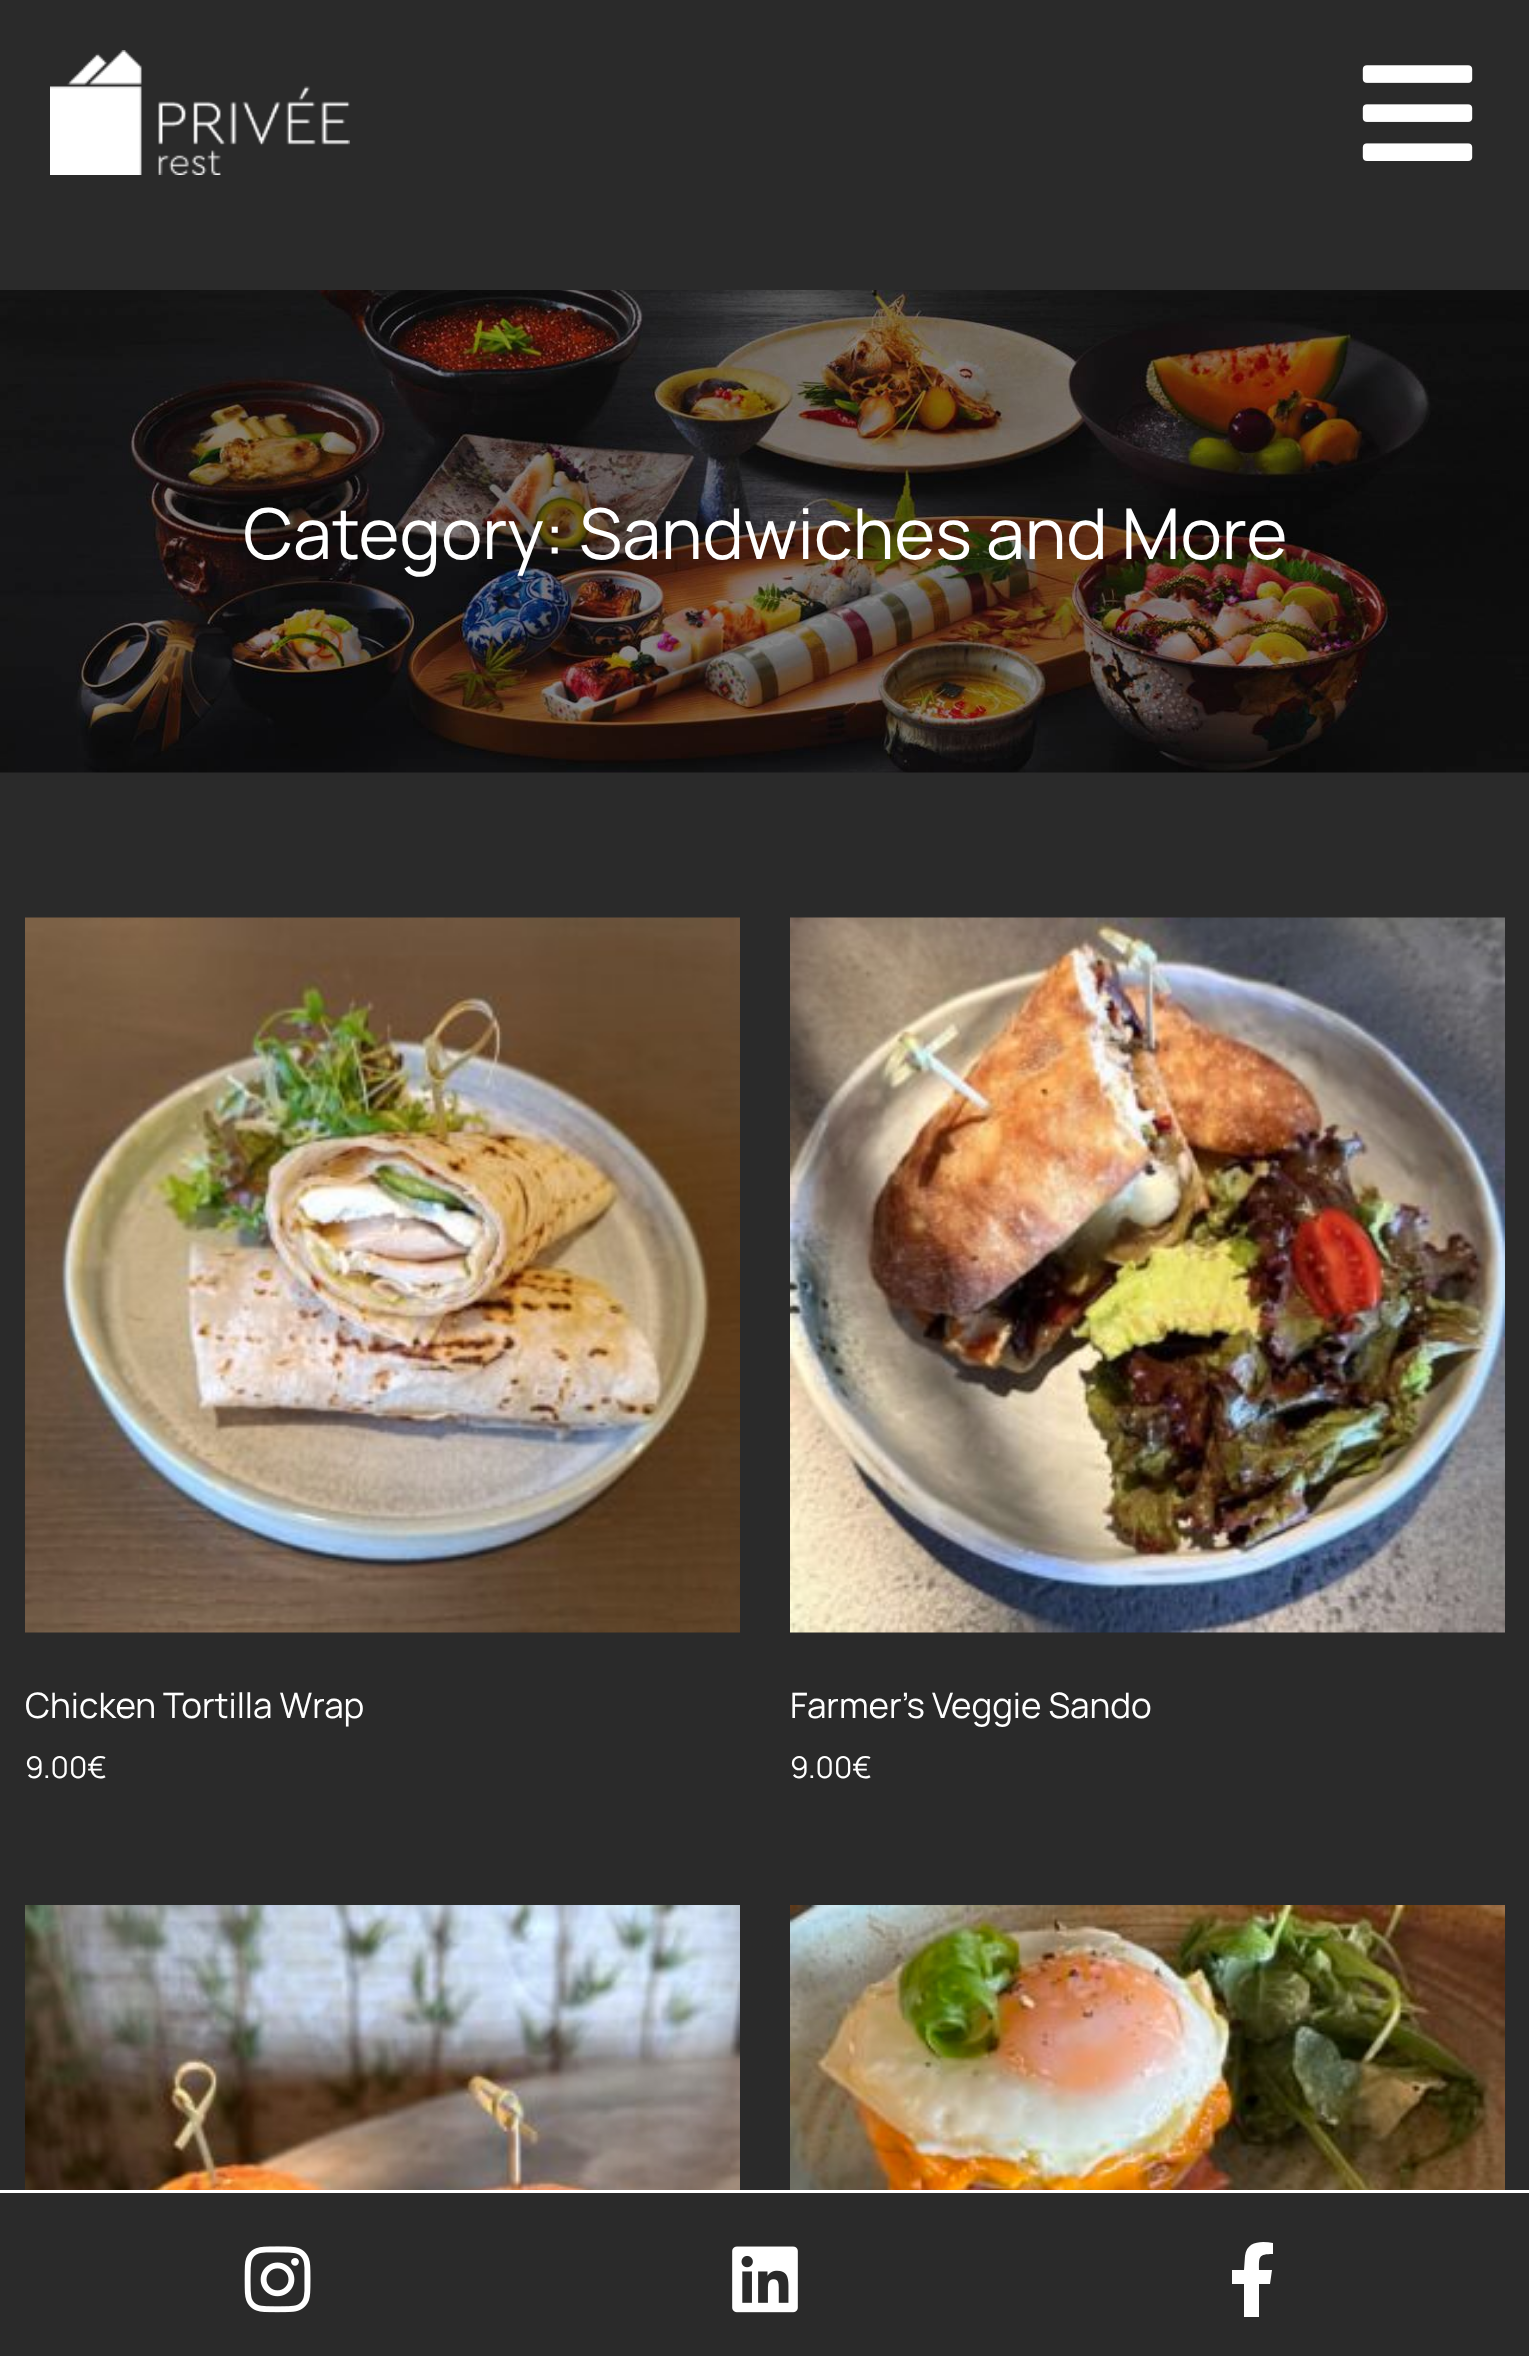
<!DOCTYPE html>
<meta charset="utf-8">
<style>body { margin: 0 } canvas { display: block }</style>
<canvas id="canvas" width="1529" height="2356"></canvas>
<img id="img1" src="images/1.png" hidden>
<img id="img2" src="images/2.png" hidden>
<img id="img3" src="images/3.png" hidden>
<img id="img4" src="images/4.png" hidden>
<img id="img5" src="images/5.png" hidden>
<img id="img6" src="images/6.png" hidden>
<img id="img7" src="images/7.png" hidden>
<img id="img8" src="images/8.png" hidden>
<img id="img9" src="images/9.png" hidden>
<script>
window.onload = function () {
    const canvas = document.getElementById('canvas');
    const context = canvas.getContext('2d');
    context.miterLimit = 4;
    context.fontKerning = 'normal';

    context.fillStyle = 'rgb(42, 42, 42)';
    context.fillRect(0, 0, 1529, 2356);
    context.drawImage(document.getElementById('img1'), 50, 50, 300, 125);
    context.drawImage(document.getElementById('img2'), 1362, 65, 111, 96);
    context.drawImage(document.getElementById('img3'), 0, 290, 1529, 483);
    context.drawImage(document.getElementById('img4'), 25, 917, 715, 716);
    context.drawImage(document.getElementById('img5'), 790, 917, 715, 716);
    context.drawImage(document.getElementById('img6'), 25, 1905, 715, 285);
    context.drawImage(document.getElementById('img7'), 790, 1905, 715, 285);
    context.fillStyle = 'rgb(255, 255, 255)';
    context.fillRect(0, 2190, 1529, 3);
    context.drawImage(document.getElementById('img8'), 244, 2246, 67, 67);
    context.drawImage(document.getElementById('img9'), 732, 2246, 66, 67);
    context.beginPath();
    context.moveTo(1270, 2284);
    context.lineTo(1259, 2284);
    context.lineTo(1259, 2317);
    context.lineTo(1244, 2317);
    context.lineTo(1244, 2284);
    context.lineTo(1232, 2284);
    context.lineTo(1232, 2270);
    context.lineTo(1244, 2270);
    context.lineTo(1245, 2256);
    context.bezierCurveTo(1247, 2241, 1261, 2241, 1273, 2243);
    context.lineTo(1273, 2254);
    context.bezierCurveTo(1258, 2254, 1259, 2257, 1259, 2270);
    context.lineTo(1272, 2270);
    context.closePath();
    context.fill();
    context.font = '70px Manrope';
    context.fillText('Category: Sandwiches and More', 243, 559);
    context.font = '35px Manrope';
    context.fillText('Chicken Tortilla Wrap', 25, 1718);
    context.font = '30px Manrope';
    context.fillText('9.00€', 25, 1778);
    context.font = '35px Manrope';
    context.fillText('Farmer’s Veggie Sando', 790, 1718);
    context.font = '30px Manrope';
    context.fillText('9.00€', 790, 1778);
};
</script>
